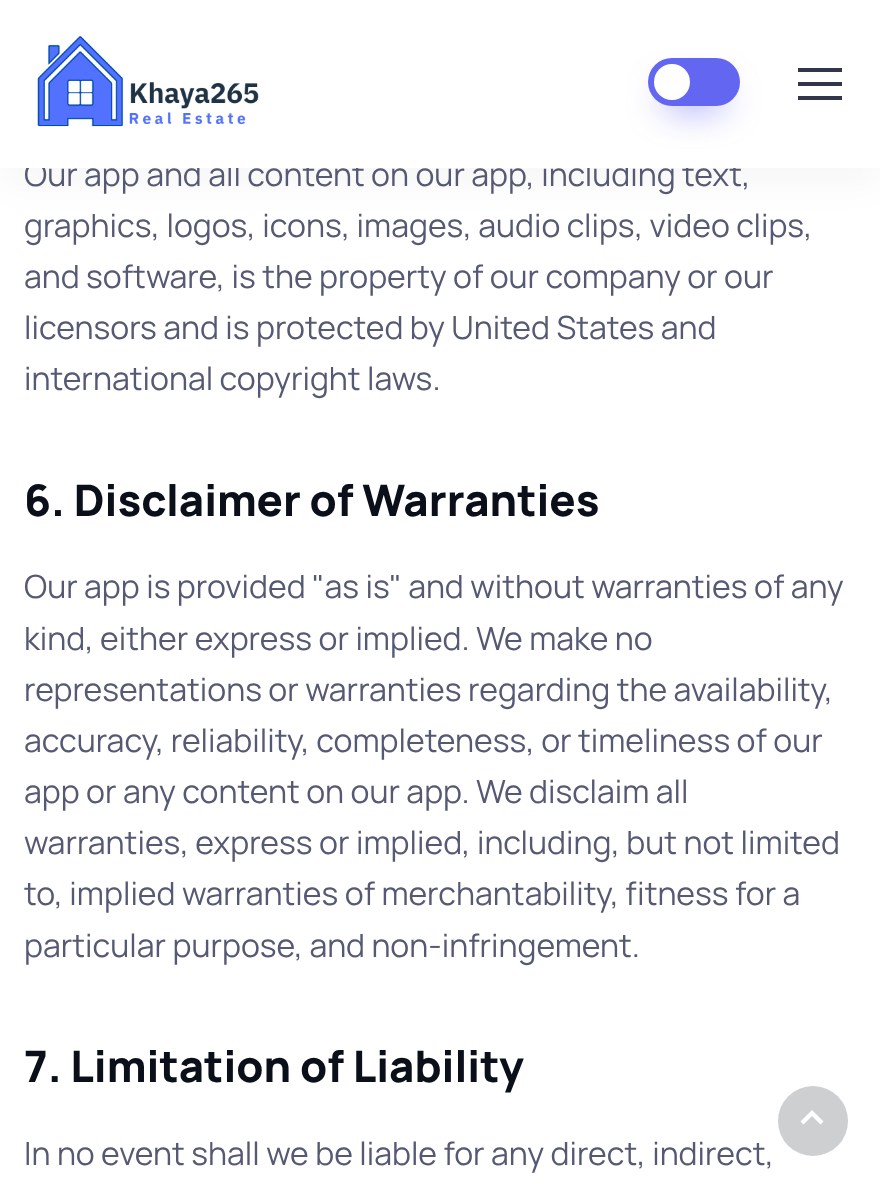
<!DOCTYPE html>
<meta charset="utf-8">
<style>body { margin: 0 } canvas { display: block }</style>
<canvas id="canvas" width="880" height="1187"></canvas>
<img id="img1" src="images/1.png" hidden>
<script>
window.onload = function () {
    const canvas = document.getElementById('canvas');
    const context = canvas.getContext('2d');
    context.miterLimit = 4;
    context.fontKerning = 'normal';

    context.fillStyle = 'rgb(255, 255, 255)';
    context.fillRect(0, 0, 880, 1187);
    context.fillStyle = 'rgba(11, 15, 25, 0.05)';
    context.filter = 'blur(20px)';
    context.beginPath();
    context.rect(0, 8, 880, 168);
    context.fill();
    context.filter = 'none';
    context.fillStyle = 'rgb(206, 207, 209)';
    context.beginPath();
    context.arc(813, 1121, 35, 0, 2 * Math.PI);
    context.fill();
    context.fillStyle = 'rgb(255, 255, 255)';
    context.beginPath();
    context.moveTo(800.5, 1121.5);
    context.lineTo(803.5, 1124.5);
    context.lineTo(812, 1116);
    context.lineTo(820.5, 1124.5);
    context.lineTo(823.5, 1121.5);
    context.lineTo(812, 1110);
    context.closePath();
    context.fill();
    context.font = '32px Manrope';
    context.fillStyle = 'rgb(86, 89, 115)';
    context.fillText('Our app and all content on our app, including text,', 24, 186);
    context.fillStyle = 'rgb(255, 255, 255)';
    context.fillRect(0, 0, 880, 168);
    context.fillStyle = 'rgb(51, 53, 77)';
    context.fillRect(798, 96, 44, 4);
    context.fillRect(798, 68, 44, 4);
    context.fillRect(798, 82, 44, 4);
    context.fillStyle = 'rgba(99, 102, 241, 0.9)';
    context.filter = 'blur(18px)';
    context.beginPath();
    context.roundRect(664, 90, 60, 16, 8);
    context.fill();
    context.filter = 'none';
    context.fillStyle = 'rgb(99, 102, 241)';
    context.beginPath();
    context.roundRect(648, 58, 92, 48, 24);
    context.fill();
    context.fillStyle = 'rgb(255, 255, 255)';
    context.beginPath();
    context.arc(672, 82, 18, 0, 2 * Math.PI);
    context.fill();
    context.drawImage(document.getElementById('img1'), 37, 35, 222, 92);
    context.fillStyle = 'rgb(86, 89, 115)';
    context.fillText('graphics, logos, icons, images, audio clips, video clips,', 24, 237);
    context.fillText('and software, is the property of our company or our', 24, 288);
    context.fillText('licensors and is protected by United States and', 24, 339);
    context.fillText('international copyright laws.', 24, 390);
    context.font = '800 43.5px Manrope';
    context.fillStyle = 'rgb(11, 15, 25)';
    context.fillText('6. Disclaimer of Warranties', 24, 516);
    context.font = '32px Manrope';
    context.fillStyle = 'rgb(86, 89, 115)';
    context.fillText('Our app is provided "as is" and without warranties of any', 24, 598);
    context.fillText('kind, either express or implied. We make no', 24, 650);
    context.fillText('representations or warranties regarding the availability,', 24, 701);
    context.fillText('accuracy, reliability, completeness, or timeliness of our', 24, 752);
    context.fillText('app or any content on our app. We disclaim all', 24, 803);
    context.fillText('warranties, express or implied, including, but not limited', 24, 854);
    context.fillText('to, implied warranties of merchantability, fitness for a', 24, 905);
    context.fillText('particular purpose, and non-infringement.', 24, 957);
    context.font = '800 43.5px Manrope';
    context.fillStyle = 'rgb(11, 15, 25)';
    context.fillText('7. Limitation of Liability', 24, 1082);
    context.font = '32px Manrope';
    context.fillStyle = 'rgb(86, 89, 115)';
    context.fillText('In no event shall we be liable for any direct, indirect,', 24, 1165);
};
</script>
